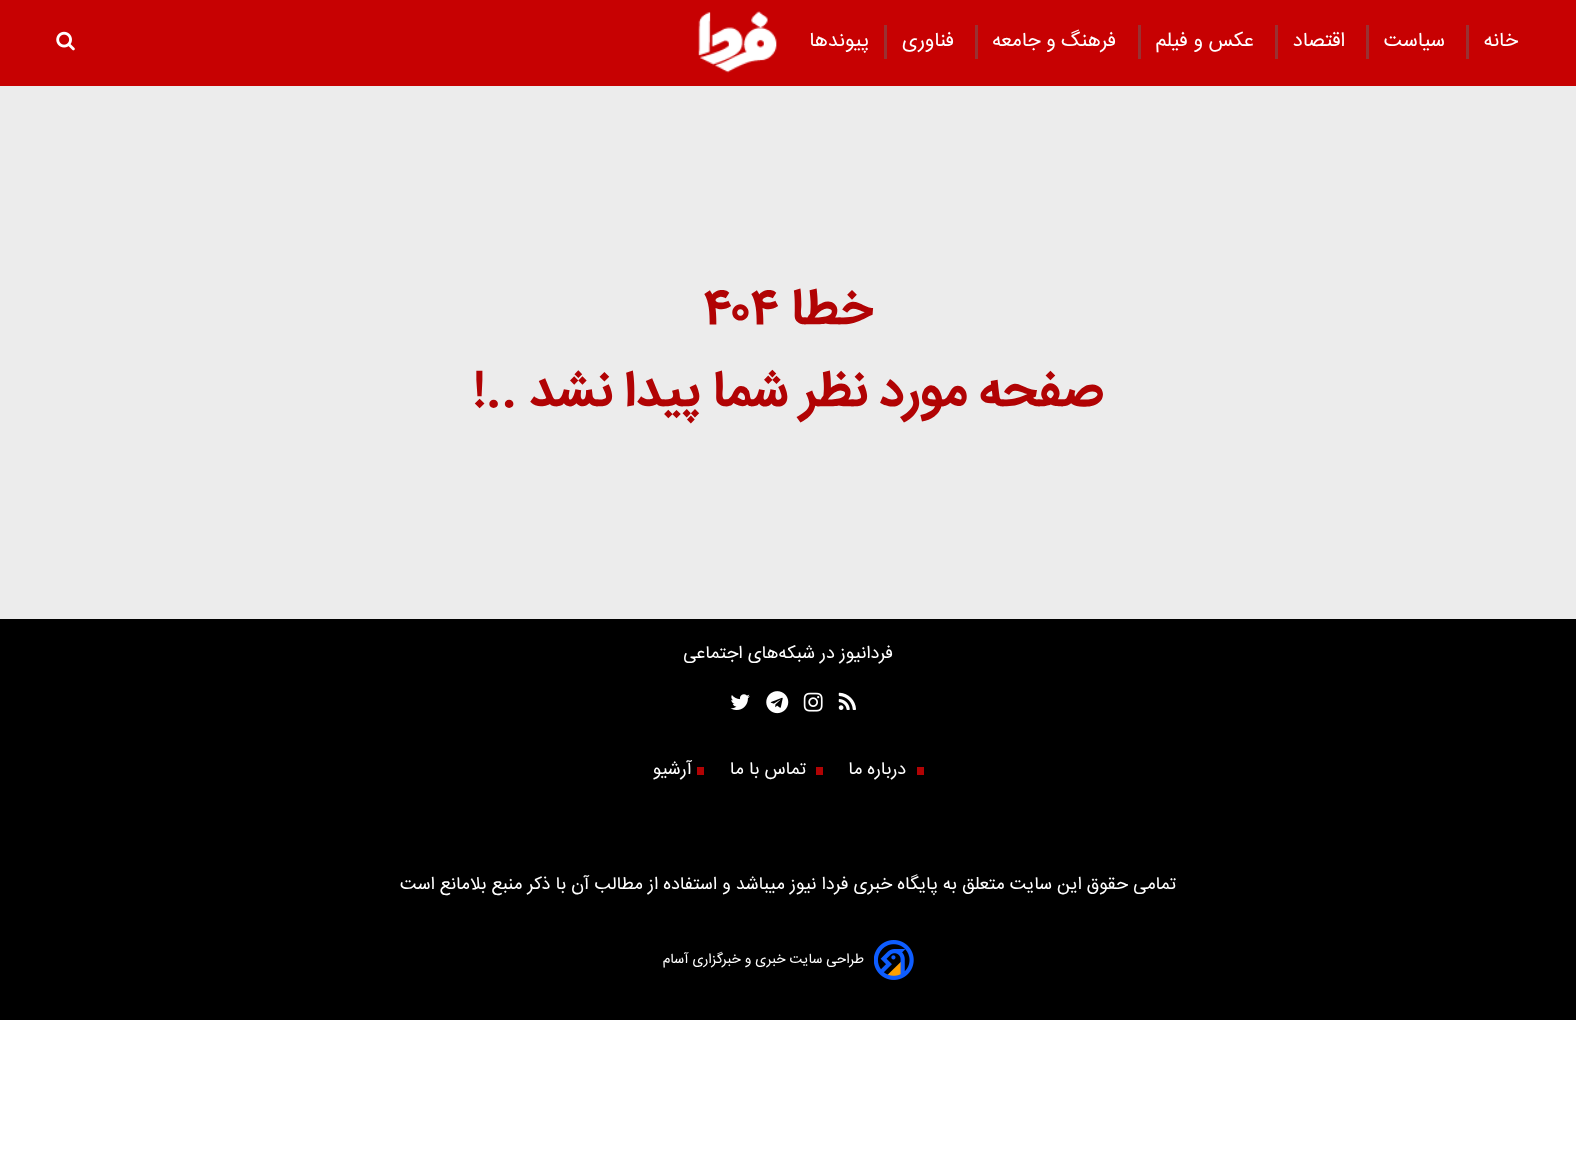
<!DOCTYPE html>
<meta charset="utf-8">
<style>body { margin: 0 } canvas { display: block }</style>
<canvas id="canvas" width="1576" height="1159"></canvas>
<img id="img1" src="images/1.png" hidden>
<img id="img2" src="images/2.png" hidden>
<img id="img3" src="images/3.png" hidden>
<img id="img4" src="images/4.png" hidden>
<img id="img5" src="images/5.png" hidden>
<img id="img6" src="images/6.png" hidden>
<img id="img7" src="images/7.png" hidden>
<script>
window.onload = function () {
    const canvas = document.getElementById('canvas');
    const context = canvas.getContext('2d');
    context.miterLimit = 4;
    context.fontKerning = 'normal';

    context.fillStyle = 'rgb(255, 255, 255)';
    context.fillRect(0, 0, 1576, 1159);
    context.fillStyle = 'rgb(199, 1, 2)';
    context.fillRect(0, 0, 1576, 86);
    context.fillStyle = 'rgb(153, 49, 50)';
    context.fillRect(1466, 25, 3, 34);
    context.fillRect(1366, 25, 3, 34);
    context.fillRect(1275, 25, 3, 34);
    context.fillRect(1138, 25, 3, 34);
    context.fillRect(975, 25, 3, 34);
    context.fillRect(884, 25, 3, 34);
    context.drawImage(document.getElementById('img1'), 698, 11, 79, 62);
    context.drawImage(document.getElementById('img2'), 56, 31, 19, 20);
    context.fillStyle = 'rgb(236, 236, 236)';
    context.fillRect(0, 86, 1576, 533);
    context.fillStyle = 'rgb(0, 0, 0)';
    context.fillRect(0, 619, 1576, 401);
    context.drawImage(document.getElementById('img3'), 838, 692, 18, 18);
    context.drawImage(document.getElementById('img4'), 803, 692, 20, 20);
    context.drawImage(document.getElementById('img5'), 766, 691, 23, 23);
    context.drawImage(document.getElementById('img6'), 730, 694, 20, 16);
    context.fillStyle = 'rgb(177, 3, 4)';
    context.fillRect(917, 767, 7, 8);
    context.fillRect(816, 767, 7, 8);
    context.fillRect(697, 767, 7, 8);
    context.drawImage(document.getElementById('img7'), 874, 940, 40, 40);
    context.direction = 'rtl';
    context.font = '20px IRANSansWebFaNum';
    context.fillStyle = 'rgb(255, 255, 255)';
    context.fillText('خانه', 1518, 46);
    context.fillText('سیاست', 1445, 46);
    context.fillText('اقتصاد', 1345, 46);
    context.fillText('عکس و فیلم', 1254, 46);
    context.fillText('فرهنگ و جامعه', 1116, 46);
    context.fillText('فناوری', 954, 46);
    context.fillText('پیوند‌ها', 869, 46);
    context.font = 'bold 50px IRANSansWebFaNum';
    context.fillStyle = 'rgb(177, 3, 4)';
    context.fillText('خطا', 873, 323);
    context.direction = 'ltr';
    context.fillText('۴۰۴', 704, 323);
    context.direction = 'rtl';
    context.fillText('صفحه مورد نظر شما پیدا نشد ..!', 1103, 405);
    context.font = '18px IRANSansWebFaNum';
    context.fillStyle = 'rgb(255, 255, 255)';
    context.fillText('فردانیوز در شبکه‌های اجتماعی', 893, 658);
    context.fillText('درباره ما', 906, 774);
    context.fillText('تماس با ما', 806, 774);
    context.fillText('آرشیو', 692, 774);
    context.fillText('تمامی حقوق این سایت متعلق به پایگاه خبری فردا نیوز میباشد و استفاده از مطالب آن با ذکر منبع بلامانع است', 1176, 889);
    context.font = '14px IRANSansWebFaNum';
    context.fillText('طراحی سایت خبری و خبرگزاری آسام', 864, 963);
};
</script>
